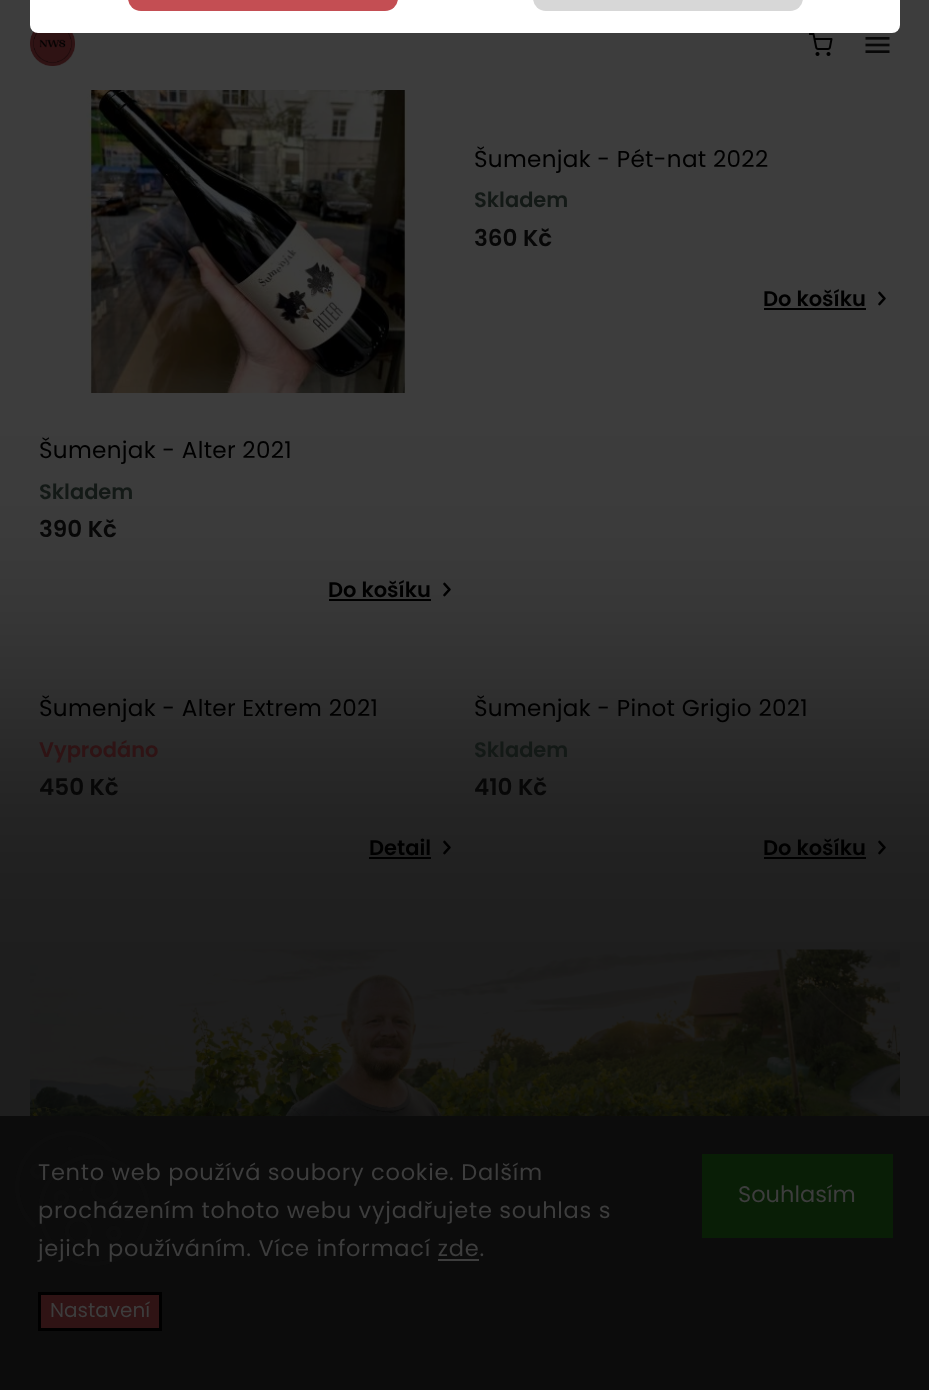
<!DOCTYPE html>
<meta charset="utf-8">
<style>body { margin: 0 } canvas { display: block }</style>
<canvas id="canvas" width="929" height="1390"></canvas>
<img id="img1" src="images/1.png" hidden>
<img id="img2" src="images/2.png" hidden>
<img id="img3" src="images/3.png" hidden>
<img id="img4" src="images/4.png" hidden>
<img id="img5" src="images/5.png" hidden>
<img id="img6" src="images/6.png" hidden>
<script>
window.onload = function () {
    const canvas = document.getElementById('canvas');
    const context = canvas.getContext('2d');
    context.miterLimit = 4;
    context.fontKerning = 'normal';

    context.fillStyle = 'rgb(61, 61, 61)';
    context.fillRect(0, 0, 929, 1390);
    context.drawImage(document.getElementById('img1'), 30, 31, 45, 35);
    context.fillStyle = 'rgb(255, 255, 255)';
    context.beginPath();
    context.roundRect(30, -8, 870, 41, 8);
    context.fill();
    context.fillStyle = 'rgb(196, 78, 83)';
    context.beginPath();
    context.roundRect(128, -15, 270, 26, 15);
    context.fill();
    context.fillStyle = 'rgb(215, 215, 215)';
    context.beginPath();
    context.roundRect(533, -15, 270, 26, 15);
    context.fill();
    context.drawImage(document.getElementById('img2'), 809, 33, 24, 23);
    context.drawImage(document.getElementById('img3'), 865, 37, 25, 16);
    context.fillStyle = 'rgb(0, 0, 0)';
    context.fillRect(764, 308, 102, 2);
    context.beginPath();
    context.moveTo(879.5, 304);
    context.lineTo(884.5, 298.5);
    context.lineTo(879.5, 293);
    context.strokeStyle = 'rgb(0, 0, 0)';
    context.lineWidth = 2.6;
    context.lineCap = 'round';
    context.lineJoin = 'round';
    context.stroke();
    context.drawImage(document.getElementById('img4'), 86, 90, 323, 303);
    context.fillRect(329, 599, 102, 2);
    context.beginPath();
    context.moveTo(444.5, 595);
    context.lineTo(449.5, 589.5);
    context.lineTo(444.5, 584);
    context.stroke();
    context.fillRect(369, 857, 62, 2);
    context.beginPath();
    context.moveTo(444.5, 853);
    context.lineTo(449.5, 847.5);
    context.lineTo(444.5, 842);
    context.stroke();
    context.fillRect(764, 857, 102, 2);
    context.beginPath();
    context.moveTo(879.5, 853);
    context.lineTo(884.5, 847.5);
    context.lineTo(879.5, 842);
    context.stroke();
    context.drawImage(document.getElementById('img5'), 30, 949, 870, 167);
    context.fillStyle = 'rgba(0, 0, 0, 0.5)';
    context.filter = 'blur(120px)';
    context.beginPath();
    context.rect(-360, 711, 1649, 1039);
    context.fill();
    context.filter = 'none';
    context.fillStyle = 'rgb(12, 12, 12)';
    context.fillRect(0, 1116, 929, 274);
    context.drawImage(document.getElementById('img6'), 15, 1131, 135, 135);
    context.fillStyle = 'rgb(61, 61, 61)';
    context.fillRect(438, 1259, 41, 2);
    context.fillStyle = 'rgb(47, 19, 20)';
    context.beginPath();
    context.rect(39.5, 1293.5, 121, 36);
    context.fill();
    context.lineWidth = 3;
    context.lineJoin = 'miter';
    context.stroke();
    context.fillStyle = 'rgb(9, 30, 6)';
    context.fillRect(702, 1154, 191, 84);
    context.letterSpacing = '0.3px';
    context.font = '23.1px Poppins';
    context.fillStyle = 'rgb(0, 0, 0)';
    context.fillText('Šumenjak - Pét-nat 2022', 474, 167);
    context.letterSpacing = '0px';
    context.font = '600 21px Poppins';
    context.fillStyle = 'rgb(19, 25, 22)';
    context.fillText('Skladem', 474, 207);
    context.font = '600 23.1px Poppins';
    context.fillStyle = 'rgb(7, 7, 7)';
    context.fillText('360 Kč', 474, 246);
    context.font = '600 21px Poppins';
    context.fillStyle = 'rgb(0, 0, 0)';
    context.fillText('Do košíku', 763, 306);
    context.letterSpacing = '0.3px';
    context.font = '23.1px Poppins';
    context.fillText('Šumenjak - Alter 2021', 39, 458);
    context.letterSpacing = '0px';
    context.font = '600 21px Poppins';
    context.fillStyle = 'rgb(19, 25, 22)';
    context.fillText('Skladem', 39, 499);
    context.font = '600 23.1px Poppins';
    context.fillStyle = 'rgb(7, 7, 7)';
    context.fillText('390 Kč', 39, 537);
    context.font = '600 21px Poppins';
    context.fillStyle = 'rgb(0, 0, 0)';
    context.fillText('Do košíku', 328, 597);
    context.letterSpacing = '0.3px';
    context.font = '23.1px Poppins';
    context.fillText('Šumenjak - Alter Extrem 2021', 39, 716);
    context.letterSpacing = '0px';
    context.font = '600 21px Poppins';
    context.fillStyle = 'rgb(47, 19, 20)';
    context.fillText('Vyprodáno', 39, 757);
    context.font = '600 23.1px Poppins';
    context.fillStyle = 'rgb(7, 7, 7)';
    context.fillText('450 Kč', 39, 795);
    context.font = '600 21px Poppins';
    context.fillStyle = 'rgb(0, 0, 0)';
    context.fillText('Detail', 369, 855);
    context.letterSpacing = '0.3px';
    context.font = '23.1px Poppins';
    context.fillText('Šumenjak - Pinot Grigio 2021', 474, 716);
    context.letterSpacing = '0px';
    context.font = '600 21px Poppins';
    context.fillStyle = 'rgb(19, 25, 22)';
    context.fillText('Skladem', 474, 757);
    context.font = '600 23.1px Poppins';
    context.fillStyle = 'rgb(7, 7, 7)';
    context.fillText('410 Kč', 474, 795);
    context.font = '600 21px Poppins';
    context.fillStyle = 'rgb(0, 0, 0)';
    context.fillText('Do košíku', 763, 855);
    context.letterSpacing = '0.75px';
    context.font = '22.5px Poppins';
    context.fillStyle = 'rgb(61, 61, 61)';
    context.fillText('Tento web používá soubory cookie. Dalším', 38, 1180);
    context.fillText('procházením tohoto webu vyjadřujete souhlas s', 38, 1218);
    context.fillText('jejich používáním. Více informací zde.', 38, 1256);
    context.letterSpacing = '0px';
    context.font = '20px Poppins';
    context.fillText('Nastavení', 50, 1317);
    context.font = '22.5px Poppins';
    context.fillText('Souhlasím', 738, 1202);
};
</script>
